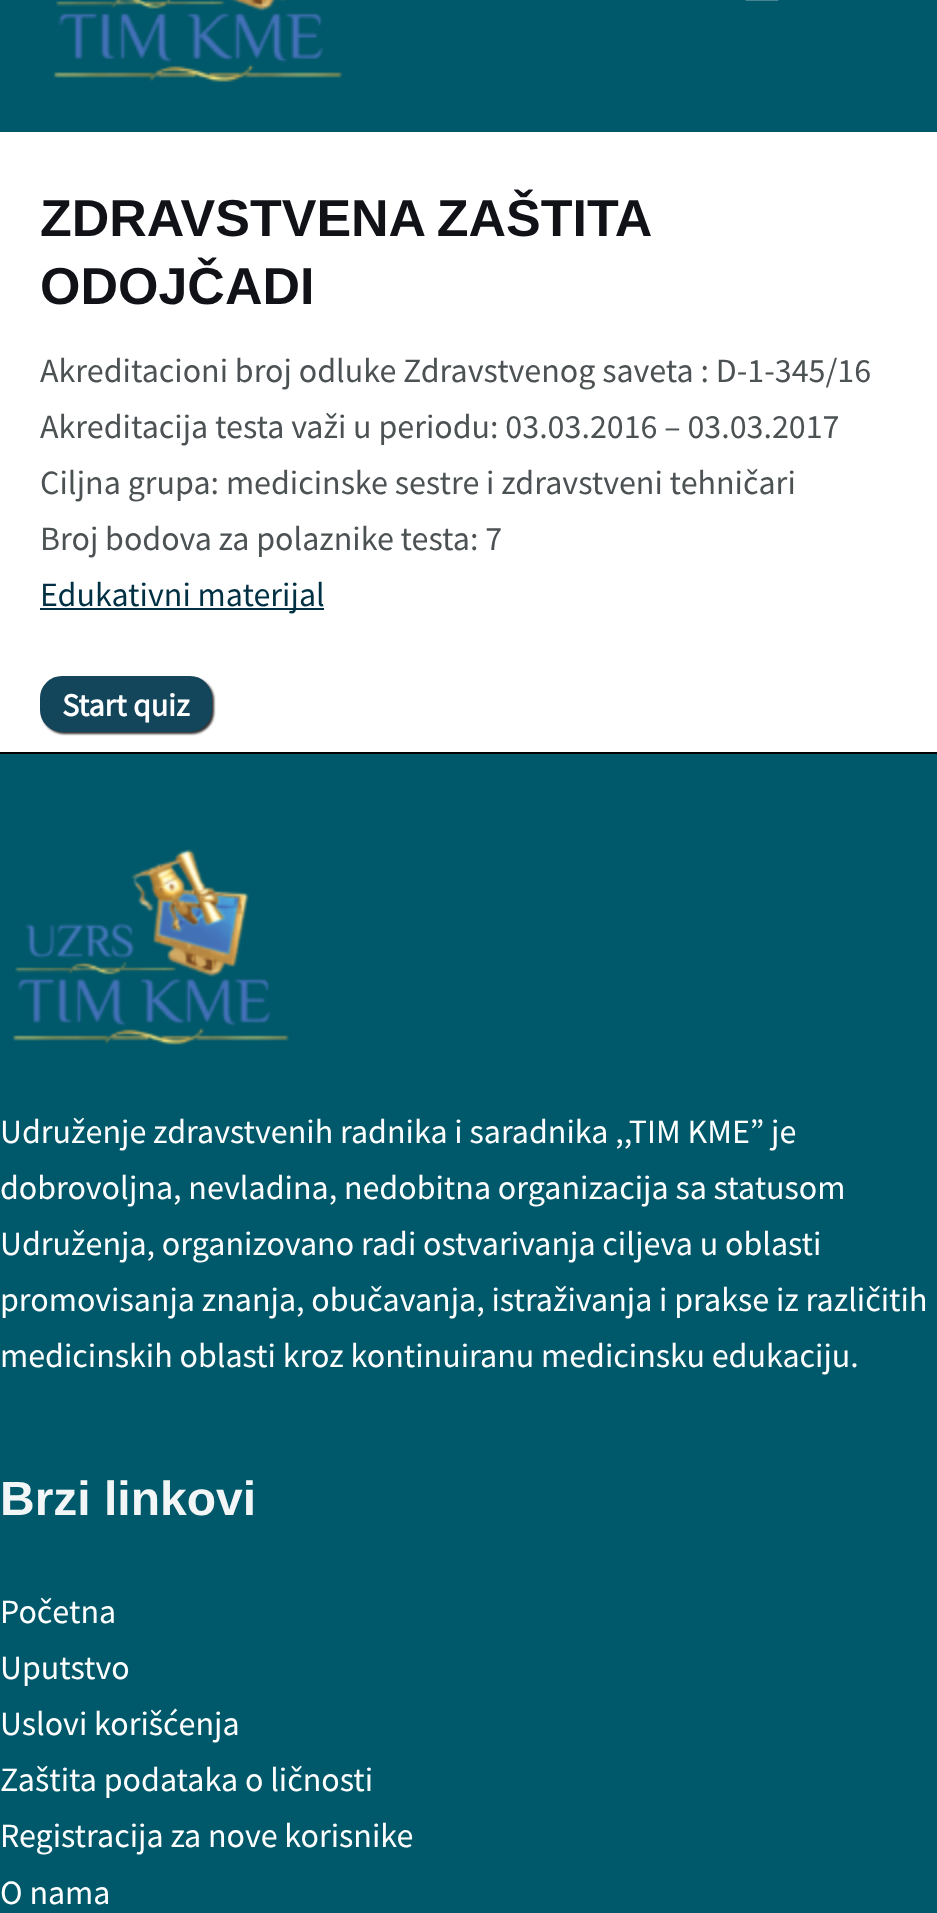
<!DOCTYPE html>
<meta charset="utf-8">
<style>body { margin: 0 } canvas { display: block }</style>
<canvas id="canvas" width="937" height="1913"></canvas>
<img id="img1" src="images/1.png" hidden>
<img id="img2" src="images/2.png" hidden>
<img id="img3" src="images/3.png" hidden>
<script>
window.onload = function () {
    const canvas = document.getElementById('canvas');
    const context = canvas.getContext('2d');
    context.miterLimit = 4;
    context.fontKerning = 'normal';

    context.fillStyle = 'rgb(255, 255, 255)';
    context.fillRect(0, 0, 937, 1913);
    context.fillStyle = 'rgb(0, 89, 106)';
    context.fillRect(0, 0, 937, 132);
    context.drawImage(document.getElementById('img1'), 53, 0, 289, 82);
    context.drawImage(document.getElementById('img2'), 745, 0, 34, 1);
    context.fillStyle = 'rgb(0, 48, 68)';
    context.fillRect(40, 608, 284, 2);
    context.fillStyle = 'rgb(51, 51, 51)';
    context.filter = 'blur(1px)';
    context.beginPath();
    context.roundRect(42, 678, 172, 56, 22);
    context.fill();
    context.filter = 'none';
    context.fillStyle = 'rgb(19, 69, 91)';
    context.beginPath();
    context.roundRect(41, 677, 170, 54, 21);
    context.fill();
    context.strokeStyle = 'rgb(19, 69, 91)';
    context.lineWidth = 2;
    context.stroke();
    context.fillStyle = 'rgb(0, 89, 106)';
    context.fillRect(0, 754, 937, 1159);
    context.fillStyle = 'rgb(0, 0, 0)';
    context.fillRect(0, 752, 937, 2);
    context.drawImage(document.getElementById('img3'), 12, 849, 277, 196);
    context.wordSpacing = '-2px';
    context.font = 'bold 52px Liberation Sans';
    context.fillStyle = 'rgb(16, 18, 24)';
    context.fillText('ZDRAVSTVENA ZAŠTITA', 40, 236);
    context.wordSpacing = '0px';
    context.fillText('ODOJČADI', 40, 304);
    context.font = '34px Source Sans Pro';
    context.fillStyle = 'rgb(76, 82, 83)';
    context.fillText('Akreditacioni broj odluke Zdravstvenog saveta : D-1-345/16', 40, 382);
    context.fillText('Akreditacija testa važi u periodu: 03.03.2016 – 03.03.2017', 40, 438);
    context.fillText('Ciljna grupa: medicinske sestre i zdravstveni tehničari', 40, 494);
    context.fillText('Broj bodova za polaznike testa: 7', 40, 550);
    context.fillStyle = 'rgb(0, 48, 68)';
    context.fillText('Edukativni materijal', 40, 606);
    context.font = 'bold 32px Source Sans Pro';
    context.fillStyle = 'rgb(255, 255, 255)';
    context.fillText('Start quiz', 62, 716);
    context.font = '34px Source Sans Pro';
    context.fillText('Udruženje zdravstvenih radnika i saradnika ,,TIM KME” je', 0, 1143);
    context.fillText('dobrovoljna, nevladina, nedobitna organizacija sa statusom', 0, 1199);
    context.fillText('Udruženja, organizovano radi ostvarivanja ciljeva u oblasti', 0, 1255);
    context.fillText('promovisanja znanja, obučavanja, istraživanja i prakse iz različitih', 0, 1311);
    context.fillText('medicinskih oblasti kroz kontinuiranu medicinsku edukaciju.', 0, 1367);
    context.font = 'bold 48px Liberation Sans';
    context.fillStyle = 'rgb(243, 246, 246)';
    context.fillText('Brzi linkovi', 0, 1515);
    context.font = '34px Source Sans Pro';
    context.fillStyle = 'rgb(255, 255, 255)';
    context.fillText('Početna', 0, 1623);
    context.fillText('Uputstvo', 0, 1679);
    context.fillText('Uslovi korišćenja', 0, 1735);
    context.fillText('Zaštita podataka o ličnosti', 0, 1791);
    context.fillText('Registracija za nove korisnike', 0, 1847);
    context.fillText('O nama', 0, 1904);
};
</script>
